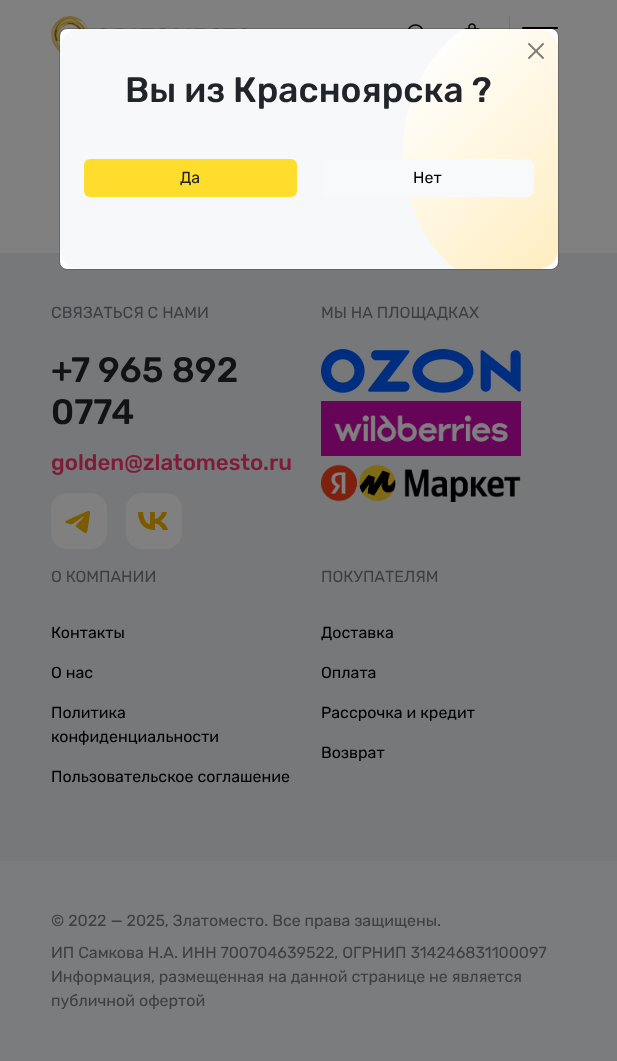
<!DOCTYPE html>
<meta charset="utf-8">
<style>body { margin: 0 } canvas { display: block }</style>
<canvas id="canvas" width="617" height="1061"></canvas>
<img id="img1" src="images/1.png" hidden>
<img id="img2" src="images/2.png" hidden>
<img id="img3" src="images/3.png" hidden>
<img id="img4" src="images/4.png" hidden>
<img id="img5" src="images/5.png" hidden>
<img id="img6" src="images/6.png" hidden>
<img id="img7" src="images/7.png" hidden>
<img id="img8" src="images/8.png" hidden>
<img id="img9" src="images/9.png" hidden>
<script>
window.onload = function () {
    const canvas = document.getElementById('canvas');
    const context = canvas.getContext('2d');
    context.miterLimit = 4;
    context.fontKerning = 'normal';
    let gradient;

    context.fillStyle = 'rgb(128, 128, 128)';
    context.fillRect(0, 0, 617, 1061);
    context.drawImage(document.getElementById('img1'), 50, 16, 198, 37);
    context.fillStyle = 'rgb(111, 113, 115)';
    context.fillRect(509, 16, 1, 13);
    context.drawImage(document.getElementById('img2'), 408, 24, 15, 5);
    context.drawImage(document.getElementById('img3'), 464, 23, 16, 6);
    context.fillStyle = 'rgb(0, 0, 0)';
    context.beginPath();
    context.roundRect(522, 27, 36, 2, 1);
    context.fill();
    context.fillStyle = 'rgb(119, 120, 122)';
    context.fillRect(0, 253, 617, 608);
    context.fillStyle = 'rgb(255, 255, 255)';
    context.beginPath();
    context.roundRect(60, 29, 498, 240, 7);
    context.fill();
    context.beginPath();
    context.roundRect(59.5, 28.5, 499, 241, 7.5);
    context.strokeStyle = 'rgba(0, 0, 0, 0.18)';
    context.stroke();
    context.fillStyle = 'rgb(246, 248, 250)';
    context.beginPath();
    context.roundRect(60, 29, 498, 240, 20);
    context.fill();
    gradient = context.createLinearGradient(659, 300, 414, 55);
    gradient.addColorStop(0, 'rgb(255, 231, 169)');
    gradient.addColorStop(1, 'rgb(255, 255, 255)');
    context.fillStyle = gradient;
    context.beginPath();
    context.moveTo(454, 269);
    context.bezierCurveTo(382, 204, 386, 89, 462, 29);
    context.lineTo(538, 29);
    context.bezierCurveTo(549, 29, 558, 38, 558, 49);
    context.lineTo(558, 249);
    context.bezierCurveTo(558, 260, 549, 269, 538, 269);
    context.closePath();
    context.fill();
    context.drawImage(document.getElementById('img4'), 528, 43, 16, 16);
    context.fillStyle = 'rgb(255, 221, 45)';
    context.beginPath();
    context.roundRect(84, 159, 213, 38, 6);
    context.fill();
    context.fillStyle = 'rgb(248, 249, 250)';
    context.beginPath();
    context.roundRect(321.5, 159.5, 212, 37, 5.5);
    context.fill();
    context.strokeStyle = 'rgb(248, 249, 250)';
    context.stroke();
    context.drawImage(document.getElementById('img5'), 51, 493, 56, 56);
    context.drawImage(document.getElementById('img6'), 126, 493, 56, 56);
    context.drawImage(document.getElementById('img7'), 321, 349, 200, 44);
    context.drawImage(document.getElementById('img8'), 321, 401, 200, 55);
    context.drawImage(document.getElementById('img9'), 321, 464, 200, 38);
    context.fillStyle = 'rgb(123, 124, 125)';
    context.fillRect(0, 861, 617, 200);
    context.font = '500 35.25px Rubik';
    context.fillStyle = 'rgb(33, 37, 41)';
    context.fillText('Вы из Красноярска ?', 125, 102);
    context.font = '16px Rubik';
    context.fillText('Да', 180, 183);
    context.fillStyle = 'rgb(0, 0, 0)';
    context.fillText('Нет', 413, 183);
    context.fillStyle = 'rgb(60, 63, 67)';
    context.fillText('СВЯЗАТЬСЯ С НАМИ', 51, 318);
    context.font = '500 35.25px Rubik';
    context.fillStyle = 'rgb(17, 19, 21)';
    context.fillText('+7 965 892', 51, 382);
    context.fillText('0774', 51, 424);
    context.font = '500 22.25px Rubik';
    context.fillStyle = 'rgb(128, 26, 57)';
    context.fillText('golden@zlatomesto.ru', 51, 470);
    context.font = '16px Rubik';
    context.fillStyle = 'rgb(60, 63, 67)';
    context.fillText('МЫ НА ПЛОЩАДКАХ', 321, 318);
    context.fillText('О КОМПАНИИ', 51, 582);
    context.fillStyle = 'rgb(0, 0, 0)';
    context.fillText('Контакты', 51, 638);
    context.fillText('О нас', 51, 678);
    context.fillText('Политика', 51, 718);
    context.fillText('конфиденциальности', 51, 742);
    context.fillText('Пользовательское соглашение', 51, 782);
    context.fillStyle = 'rgb(60, 63, 67)';
    context.fillText('ПОКУПАТЕЛЯМ', 321, 582);
    context.fillStyle = 'rgb(0, 0, 0)';
    context.fillText('Доставка', 321, 638);
    context.fillText('Оплата', 321, 678);
    context.fillText('Рассрочка и кредит', 321, 718);
    context.fillText('Возврат', 321, 758);
    context.fillStyle = 'rgb(60, 63, 67)';
    context.fillText('© 2022 — 2025, Златоместо. Все права защищены.', 51, 926);
    context.fillText('ИП Самкова Н.А. ИНН 700704639522, ОГРНИП 314246831100097', 51, 958);
    context.fillText('Информация, размещенная на данной странице не является', 51, 982);
    context.fillText('публичной офертой', 51, 1006);
};
</script>
